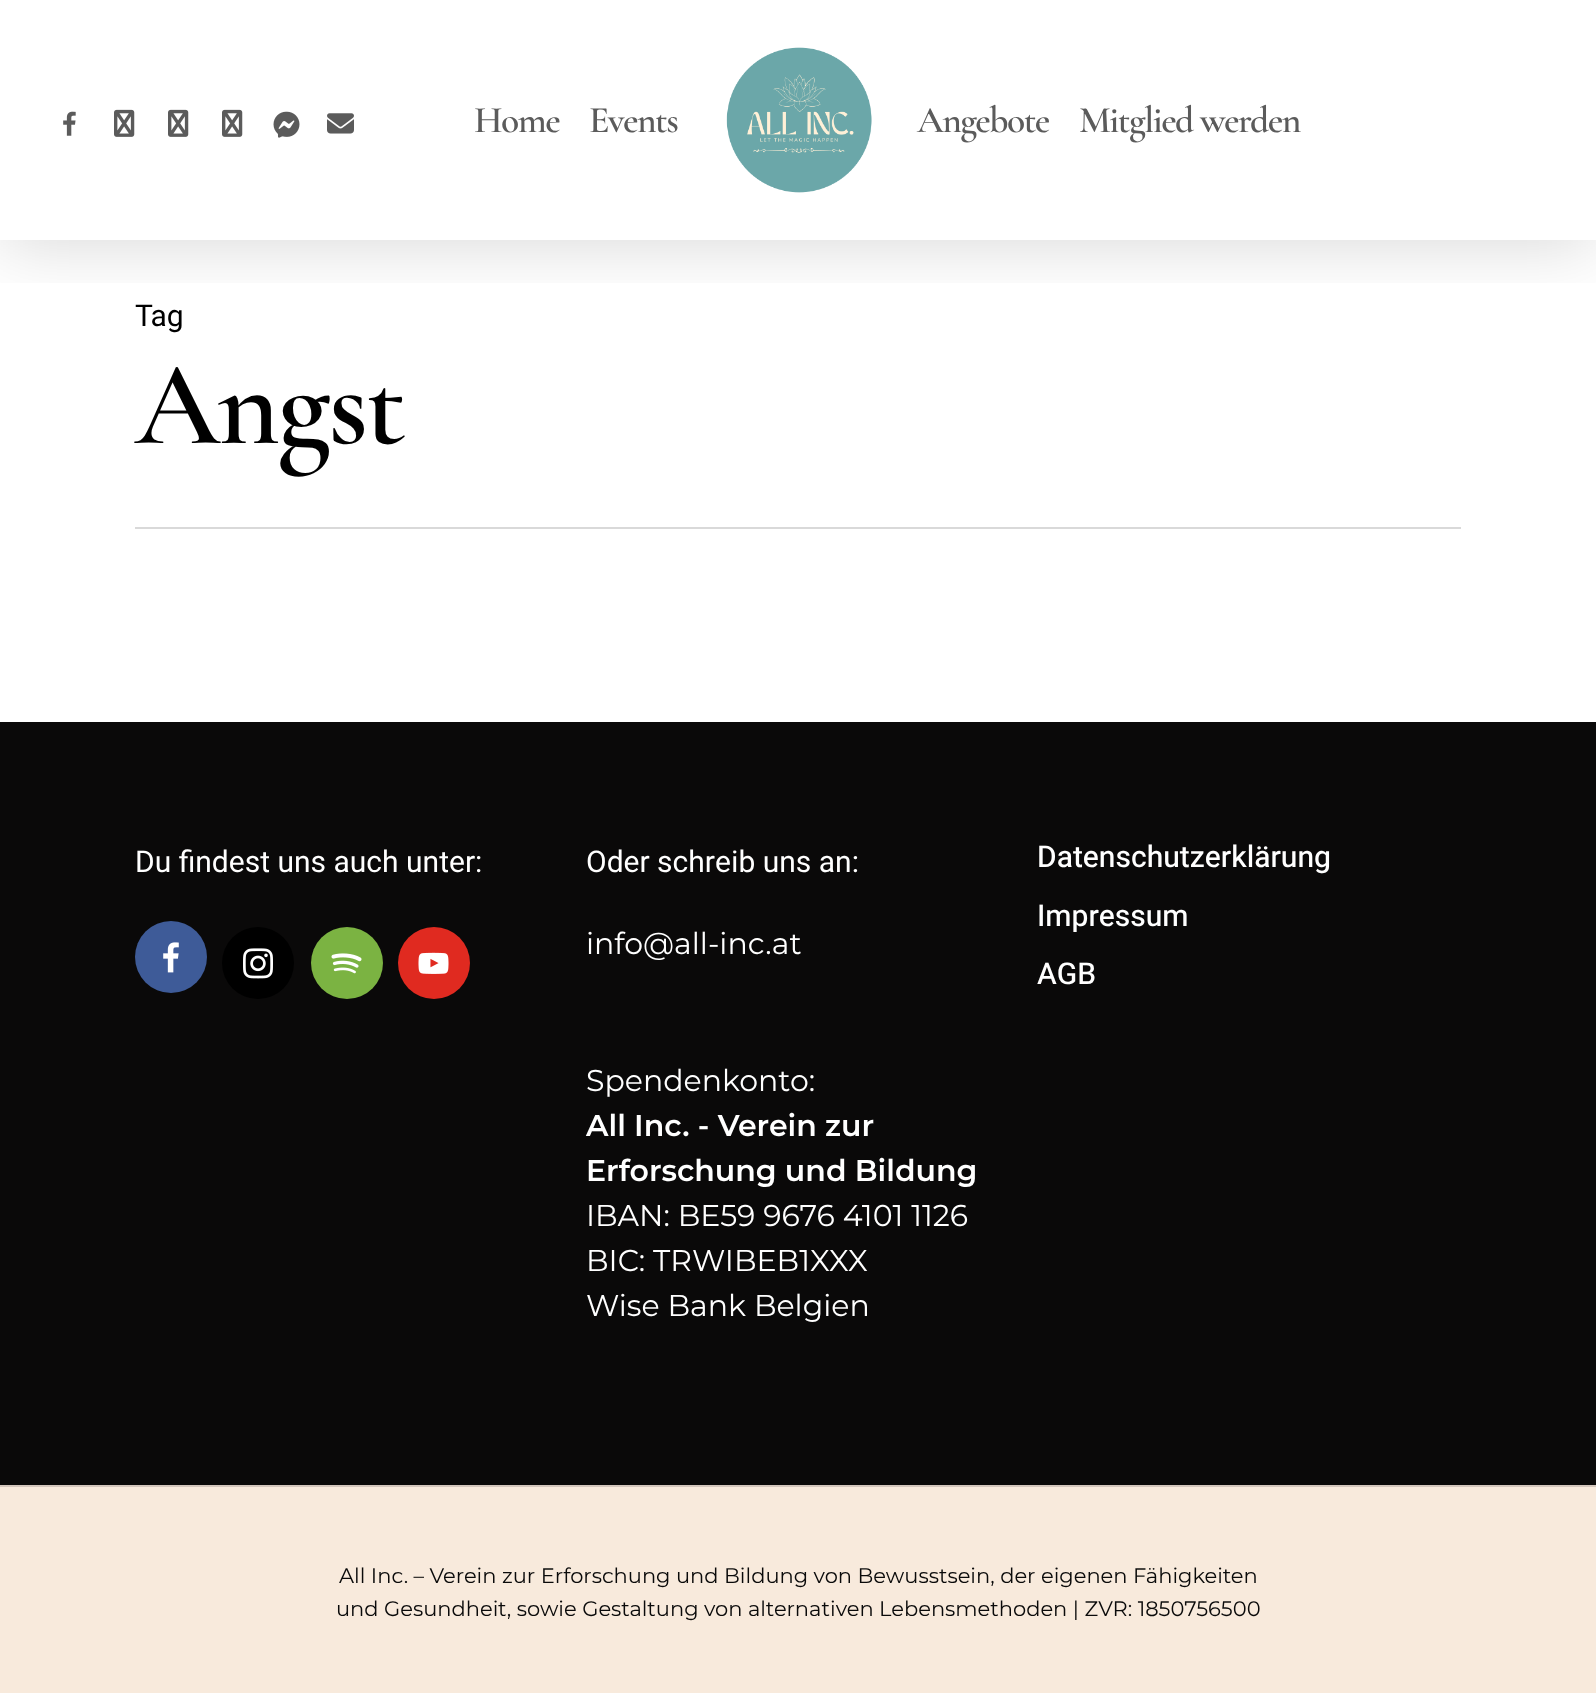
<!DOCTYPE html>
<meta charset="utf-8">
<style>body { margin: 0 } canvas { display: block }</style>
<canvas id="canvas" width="1596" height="1693"></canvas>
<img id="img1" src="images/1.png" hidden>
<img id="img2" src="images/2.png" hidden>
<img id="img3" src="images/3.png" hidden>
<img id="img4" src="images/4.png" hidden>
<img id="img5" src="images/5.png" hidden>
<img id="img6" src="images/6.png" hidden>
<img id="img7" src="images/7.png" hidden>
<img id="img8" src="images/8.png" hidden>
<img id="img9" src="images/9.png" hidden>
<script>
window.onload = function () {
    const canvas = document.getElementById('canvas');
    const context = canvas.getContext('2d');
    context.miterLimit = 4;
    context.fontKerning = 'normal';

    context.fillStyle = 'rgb(255, 255, 255)';
    context.fillRect(0, 0, 1596, 1693);
    context.save();
    context.beginPath();
    context.rect(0, 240, 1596, 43);
    context.clip();
    context.fillStyle = 'rgba(0, 0, 0, 0.15)';
    context.filter = 'blur(34px)';
    context.beginPath();
    context.rect(0, 5, 1596, 240);
    context.fill();
    context.filter = 'none';
    context.restore();
    context.drawImage(document.getElementById('img1'), 726, 47, 146, 146);
    context.drawImage(document.getElementById('img2'), 63, 111, 13, 25);
    context.drawImage(document.getElementById('img3'), 114, 109, 21, 28);
    context.drawImage(document.getElementById('img3'), 168, 109, 21, 28);
    context.drawImage(document.getElementById('img3'), 222, 109, 21, 28);
    context.drawImage(document.getElementById('img4'), 273, 111, 27, 27);
    context.drawImage(document.getElementById('img5'), 327, 113, 27, 21);
    context.fillStyle = 'rgb(217, 217, 217)';
    context.fillRect(135, 527, 1326, 2);
    context.fillStyle = 'rgb(10, 9, 9)';
    context.fillRect(0, 722, 1596, 763);
    context.fillStyle = 'rgb(62, 91, 152)';
    context.beginPath();
    context.arc(171, 957, 36, 0, 2 * Math.PI);
    context.fill();
    context.drawImage(document.getElementById('img6'), 163, 942, 16, 31);
    context.fillStyle = 'rgb(0, 0, 0)';
    context.beginPath();
    context.arc(258, 963, 36, 0, 2 * Math.PI);
    context.fill();
    context.drawImage(document.getElementById('img7'), 243, 948, 30, 31);
    context.fillStyle = 'rgb(123, 179, 66)';
    context.beginPath();
    context.arc(347, 963, 36, 0, 2 * Math.PI);
    context.fill();
    context.drawImage(document.getElementById('img8'), 331, 953, 31, 21);
    context.fillStyle = 'rgb(224, 42, 32)';
    context.beginPath();
    context.arc(434, 963, 36, 0, 2 * Math.PI);
    context.fill();
    context.drawImage(document.getElementById('img9'), 418, 952, 31, 22);
    context.fillStyle = 'rgb(248, 234, 220)';
    context.fillRect(0, 1487, 1596, 206);
    context.fillStyle = 'rgb(211, 198, 188)';
    context.fillRect(0, 1485, 1596, 2);
    context.letterSpacing = '-1.5px';
    context.font = '600 37.5px Cormorant Garamond';
    context.fillStyle = 'rgb(91, 91, 91)';
    context.fillText('Home', 474, 132);
    context.fillText('Events', 589, 132);
    context.fillText('Angebote', 917, 132);
    context.fillText('Mitglied werden', 1079, 132);
    context.letterSpacing = '0px';
    context.font = '30px Heebo';
    context.fillStyle = 'rgb(0, 0, 0)';
    context.fillText('Tag', 135, 326);
    context.letterSpacing = '-3px';
    context.font = '600 120px Cormorant Garamond';
    context.fillText('Angst', 135, 443);
    context.letterSpacing = '0px';
    context.font = '30px Heebo';
    context.fillStyle = 'rgb(255, 255, 255)';
    context.fillText('Du findest uns auch unter:', 135, 872);
    context.fillText('Oder schreib uns an:', 586, 872);
    context.font = '30px Montserrat';
    context.fillText('info@all-inc.at', 586, 954);
    context.fillText('Spendenkonto:', 586, 1091);
    context.font = '600 30px Montserrat';
    context.fillText('All Inc. - Verein zur', 586, 1136);
    context.fillText('Erforschung und Bildung', 586, 1181);
    context.font = '30px Montserrat';
    context.fillText('IBAN: BE59 9676 4101 1126', 586, 1226);
    context.fillText('BIC: TRWIBEB1XXX', 586, 1271);
    context.fillText('Wise Bank Belgien', 586, 1316);
    context.font = '500 30px Heebo';
    context.fillText('Datenschutzerklärung', 1037, 867);
    context.fillText('Impressum', 1037, 926);
    context.fillText('AGB', 1037, 984);
    context.font = '21px Montserrat';
    context.fillStyle = 'rgb(10, 10, 10)';
    context.fillText('All Inc. – Verein zur Erforschung und Bildung von Bewusstsein, der eigenen Fähigkeiten', 339, 1583);
    context.fillText('und Gesundheit, sowie Gestaltung von alternativen Lebensmethoden | ZVR: 1850756500', 336, 1616);
};
</script>
